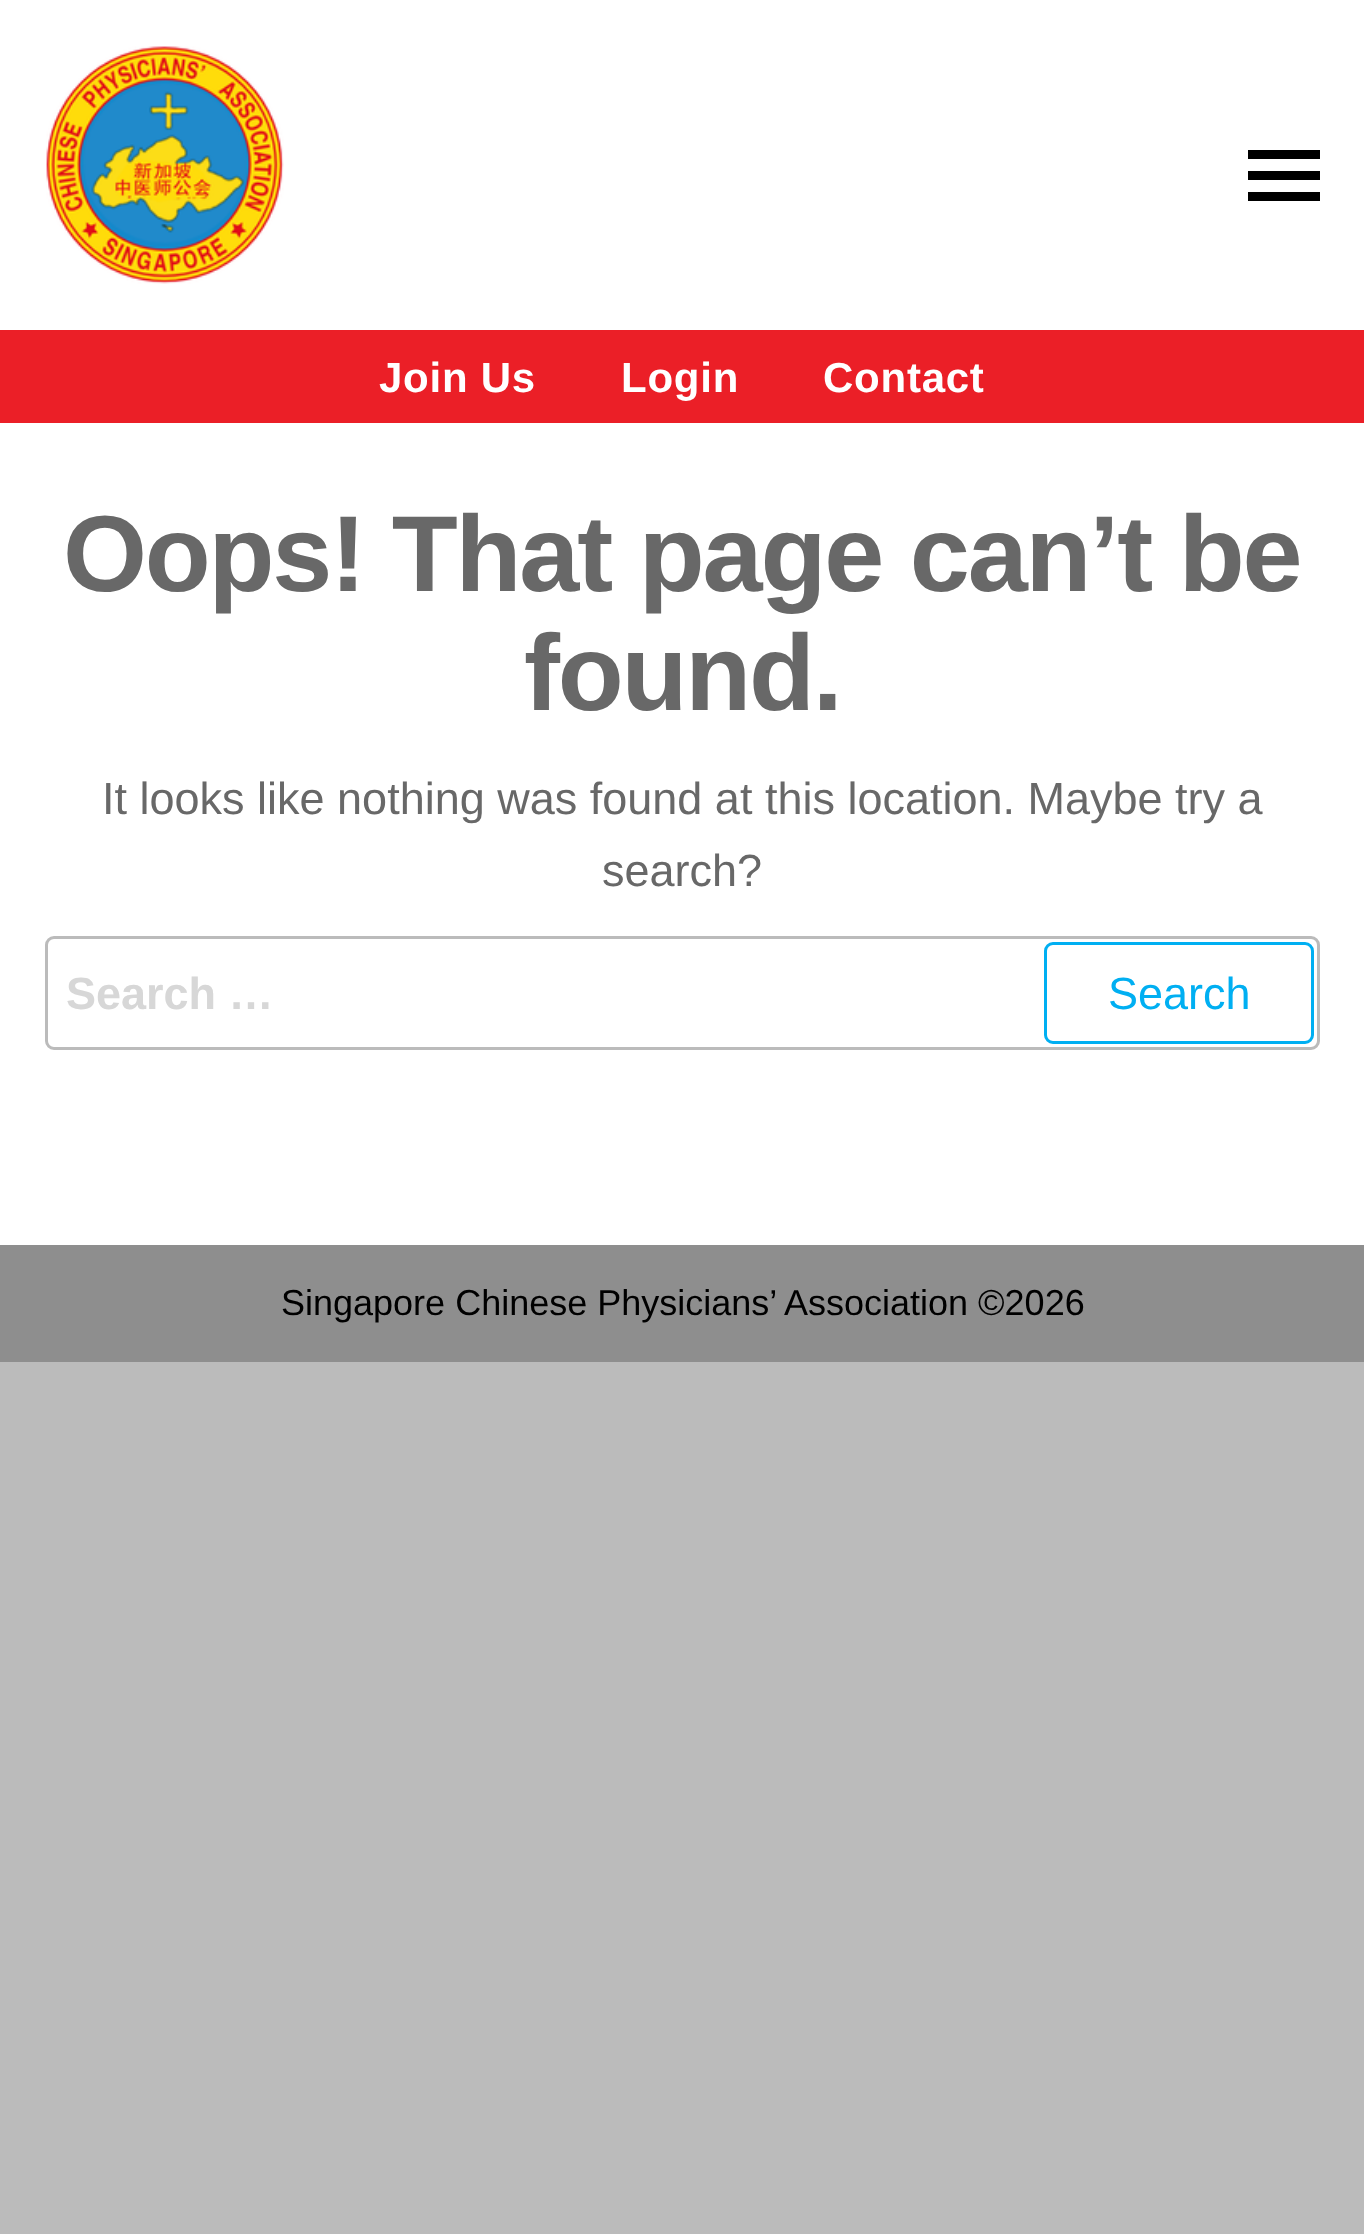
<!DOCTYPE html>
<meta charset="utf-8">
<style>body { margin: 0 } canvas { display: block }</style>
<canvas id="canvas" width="1364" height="2234"></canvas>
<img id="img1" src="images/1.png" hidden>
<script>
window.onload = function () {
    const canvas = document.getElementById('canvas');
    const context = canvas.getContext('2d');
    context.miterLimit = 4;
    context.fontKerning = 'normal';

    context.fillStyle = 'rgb(187, 187, 187)';
    context.fillRect(0, 0, 1364, 2234);
    context.fillStyle = 'rgb(255, 255, 255)';
    context.fillRect(0, 0, 1364, 1245);
    context.drawImage(document.getElementById('img1'), 46, 46, 238, 238);
    context.fillStyle = 'rgb(0, 0, 0)';
    context.fillRect(1248, 150, 72, 9);
    context.fillRect(1248, 171, 72, 9);
    context.fillRect(1248, 192, 72, 9);
    context.fillStyle = 'rgb(235, 31, 39)';
    context.fillRect(0, 330, 1364, 93);
    context.beginPath();
    context.roundRect(46.5, 937.5, 1272, 111, 7.5);
    context.strokeStyle = 'rgb(187, 187, 187)';
    context.lineWidth = 3;
    context.stroke();
    context.beginPath();
    context.roundRect(1045.5, 943.5, 267, 99, 7.5);
    context.strokeStyle = 'rgb(0, 175, 242)';
    context.stroke();
    context.fillStyle = 'rgb(142, 142, 142)';
    context.fillRect(0, 1245, 1364, 117);
    context.letterSpacing = '0.75px';
    context.font = 'bold 42px Liberation Sans';
    context.fillStyle = 'rgb(255, 255, 255)';
    context.fillText('Join Us', 379, 392);
    context.fillText('Login', 621, 392);
    context.fillText('Contact', 823, 392);
    context.letterSpacing = '-2.2px';
    context.font = 'bold 108px Liberation Sans';
    context.fillStyle = 'rgb(104, 104, 104)';
    context.fillText('Oops! That page can’t be', 63, 591);
    context.fillText('found.', 524, 710);
    context.letterSpacing = '0px';
    context.font = '45px Liberation Sans';
    context.fillText('It looks like nothing was found at this location. Maybe try a', 102, 814);
    context.fillText('search?', 602, 886);
    context.font = 'bold 45px Liberation Sans';
    context.fillStyle = 'rgb(215, 215, 215)';
    context.fillText('Search …', 66, 1009);
    context.font = '45px Liberation Sans';
    context.fillStyle = 'rgb(0, 175, 242)';
    context.fillText('Search', 1108, 1009);
    context.font = '36px Liberation Sans';
    context.fillStyle = 'rgb(0, 0, 0)';
    context.fillText('Singapore Chinese Physicians’ Association ©2026', 281, 1315);
};
</script>
